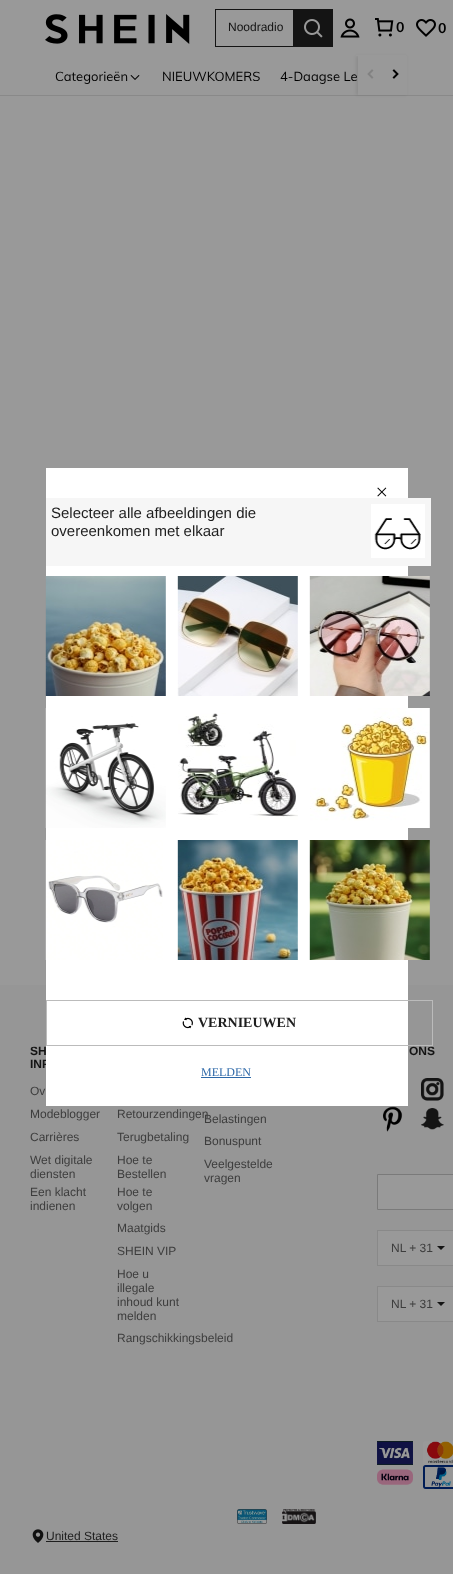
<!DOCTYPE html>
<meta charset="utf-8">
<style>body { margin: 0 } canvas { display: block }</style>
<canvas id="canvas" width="453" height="1574"></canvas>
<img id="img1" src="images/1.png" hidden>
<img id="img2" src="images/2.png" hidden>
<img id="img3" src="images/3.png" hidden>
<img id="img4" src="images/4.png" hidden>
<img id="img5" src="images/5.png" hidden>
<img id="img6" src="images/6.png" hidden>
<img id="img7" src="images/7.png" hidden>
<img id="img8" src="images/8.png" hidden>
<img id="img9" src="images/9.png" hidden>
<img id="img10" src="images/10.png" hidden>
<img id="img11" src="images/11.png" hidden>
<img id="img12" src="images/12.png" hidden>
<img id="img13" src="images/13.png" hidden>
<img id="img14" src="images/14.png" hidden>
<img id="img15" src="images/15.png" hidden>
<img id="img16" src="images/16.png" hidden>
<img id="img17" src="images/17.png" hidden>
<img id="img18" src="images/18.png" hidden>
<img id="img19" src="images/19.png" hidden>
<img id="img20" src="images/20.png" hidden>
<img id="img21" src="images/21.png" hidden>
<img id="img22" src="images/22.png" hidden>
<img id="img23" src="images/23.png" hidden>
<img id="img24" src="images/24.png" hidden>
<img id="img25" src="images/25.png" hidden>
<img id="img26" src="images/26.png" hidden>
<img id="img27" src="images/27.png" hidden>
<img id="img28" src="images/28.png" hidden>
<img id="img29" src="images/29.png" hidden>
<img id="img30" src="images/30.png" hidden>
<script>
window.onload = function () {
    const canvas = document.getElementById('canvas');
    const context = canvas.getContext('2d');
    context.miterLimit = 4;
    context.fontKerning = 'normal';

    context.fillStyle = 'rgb(153, 153, 153)';
    context.fillRect(0, 0, 453, 1574);
    context.fillStyle = 'rgb(137, 137, 137)';
    context.fillRect(0, 95, 453, 1);
    context.fillStyle = 'rgba(0, 0, 0, 0.08)';
    context.filter = 'blur(1.5px)';
    context.beginPath();
    context.rect(356, 56, 50, 39);
    context.fill();
    context.filter = 'none';
    context.fillStyle = 'rgb(153, 153, 153)';
    context.fillRect(356, 55, 50, 1);
    context.drawImage(document.getElementById('img1'), 45, 14, 145, 30);
    context.fillStyle = 'rgb(20, 20, 20)';
    context.fillRect(215, 9, 78, 1);
    context.fillRect(215, 46, 78, 1);
    context.fillRect(215, 9, 1, 38);
    context.fillRect(293, 9, 40, 38);
    context.drawImage(document.getElementById('img2'), 304, 19, 19, 19);
    context.drawImage(document.getElementById('img3'), 340, 18, 20, 20);
    context.drawImage(document.getElementById('img4'), 375, 18, 19, 19);
    context.drawImage(document.getElementById('img5'), 416, 19, 20, 18);
    context.drawImage(document.getElementById('img6'), 130, 75, 10, 5);
    context.fillStyle = 'rgb(153, 153, 153)';
    context.fillRect(358, 56, 49, 39);
    context.drawImage(document.getElementById('img7'), 367, 69, 7, 10);
    context.drawImage(document.getElementById('img8'), 392, 69, 7, 10);
    context.fillStyle = 'rgb(150, 150, 150)';
    context.fillRect(0, 985, 453, 589);
    context.drawImage(document.getElementById('img9'), 421, 1078, 23, 23);
    context.drawImage(document.getElementById('img10'), 383, 1106, 20, 26);
    context.drawImage(document.getElementById('img11'), 421, 1108, 23, 22);
    context.fillStyle = 'rgb(153, 153, 153)';
    context.beginPath();
    context.rect(377.5, 1174.5, 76, 35);
    context.fill();
    context.strokeStyle = 'rgb(122, 122, 122)';
    context.stroke();
    context.fillRect(378, 1231, 75, 34);
    context.fillStyle = 'rgb(137, 137, 137)';
    context.fillRect(377, 1230, 76, 1);
    context.fillRect(377, 1265, 76, 1);
    context.fillRect(377, 1230, 1, 36);
    context.fillStyle = 'rgb(20, 20, 20)';
    context.beginPath();
    context.moveTo(437, 1246);
    context.lineTo(445, 1246);
    context.lineTo(441, 1250);
    context.closePath();
    context.fill();
    context.fillStyle = 'rgb(153, 153, 153)';
    context.fillRect(378, 1287, 75, 34);
    context.fillStyle = 'rgb(137, 137, 137)';
    context.fillRect(377, 1286, 76, 1);
    context.fillRect(377, 1321, 76, 1);
    context.fillRect(377, 1286, 1, 36);
    context.fillStyle = 'rgb(20, 20, 20)';
    context.beginPath();
    context.moveTo(437, 1302);
    context.lineTo(445, 1302);
    context.lineTo(441, 1306);
    context.closePath();
    context.fill();
    context.drawImage(document.getElementById('img12'), 377, 1441, 36, 24);
    context.drawImage(document.getElementById('img13'), 423, 1441, 30, 24);
    context.drawImage(document.getElementById('img14'), 377, 1469, 36, 16);
    context.drawImage(document.getElementById('img15'), 423, 1465, 30, 24);
    context.drawImage(document.getElementById('img16'), 237, 1509, 30, 15);
    context.drawImage(document.getElementById('img17'), 282, 1509, 34, 15);
    context.drawImage(document.getElementById('img18'), 32, 1529, 12, 14);
    context.fillStyle = 'rgb(30, 30, 30)';
    context.fillRect(46, 1541, 72, 1);
    context.fillStyle = 'rgba(0, 0, 0, 0.3)';
    context.filter = 'blur(0.5px)';
    context.beginPath();
    context.rect(46, 468, 362, 638);
    context.fill();
    context.filter = 'none';
    context.font = '12px Liberation Sans';
    context.fillStyle = 'rgb(20, 20, 20)';
    context.fillText('Noodradio', 228, 31);
    context.font = 'bold 14px Muli';
    context.fillStyle = 'rgb(0, 0, 0)';
    context.fillText('0', 396, 32);
    context.fillText('0', 438, 33);
    context.font = '13px Muli';
    context.fillText('Categorieën', 55, 81);
    context.fillText('NIEUWKOMERS', 162, 81);
    context.fillText('4-Daagse Le', 280, 81);
    context.font = 'bold 12px Liberation Sans';
    context.fillStyle = 'rgb(20, 20, 20)';
    context.fillText('SH', 30, 1055);
    context.fillText('INF', 30, 1068);
    context.font = '12px Liberation Sans';
    context.fillStyle = 'rgb(61, 61, 61)';
    context.fillText('Ov', 30, 1095);
    context.fillText('Modeblogger', 30, 1118);
    context.fillText('Carrières', 30, 1141);
    context.fillText('Wet digitale', 30, 1164);
    context.fillText('diensten', 30, 1178);
    context.fillText('Een klacht', 30, 1196);
    context.fillText('indienen', 30, 1210);
    context.fillText('Retourzendingen', 117, 1118);
    context.fillText('Terugbetaling', 117, 1141);
    context.fillText('Hoe te', 117, 1164);
    context.fillText('Bestellen', 117, 1178);
    context.fillText('Hoe te', 117, 1196);
    context.fillText('volgen', 117, 1210);
    context.fillText('Maatgids', 117, 1232);
    context.fillText('SHEIN VIP', 117, 1255);
    context.fillText('Hoe u', 117, 1278);
    context.fillText('illegale', 117, 1292);
    context.fillText('inhoud kunt', 117, 1306);
    context.fillText('melden', 117, 1320);
    context.fillText('Rangschikkingsbeleid', 117, 1342);
    context.fillText('Belastingen', 204, 1123);
    context.fillText('Bonuspunt', 204, 1145);
    context.fillText('Veelgestelde', 204, 1168);
    context.fillText('vragen', 204, 1182);
    context.font = 'bold 12px Liberation Sans';
    context.fillStyle = 'rgb(20, 20, 20)';
    context.fillText('ONS', 409, 1055);
    context.font = '12px Liberation Sans';
    context.fillStyle = 'rgb(61, 61, 61)';
    context.fillText('NL + 31', 391, 1252);
    context.fillText('NL + 31', 391, 1308);
    context.fillStyle = 'rgb(30, 30, 30)';
    context.fillText('United States', 46, 1540);
    context.fillStyle = 'rgb(255, 255, 255)';
    context.fillRect(46, 468, 362, 638);
    context.drawImage(document.getElementById('img19'), 377, 487, 10, 10);
    context.fillStyle = 'rgb(246, 246, 246)';
    context.fillRect(46, 498, 385, 68);
    context.font = '15px Liberation Sans';
    context.fillStyle = 'rgb(30, 30, 30)';
    context.fillText('Selecteer alle afbeeldingen die', 51, 518);
    context.fillText('overeenkomen met elkaar', 51, 536);
    context.fillStyle = 'rgb(255, 255, 255)';
    context.fillRect(371, 504, 54, 54);
    context.drawImage(document.getElementById('img20'), 374, 518, 47, 32);
    context.drawImage(document.getElementById('img21'), 45, 576, 121, 120);
    context.drawImage(document.getElementById('img22'), 177, 576, 121, 120);
    context.drawImage(document.getElementById('img23'), 309, 576, 121, 120);
    context.drawImage(document.getElementById('img24'), 45, 708, 121, 120);
    context.drawImage(document.getElementById('img25'), 178, 713, 120, 107);
    context.drawImage(document.getElementById('img26'), 310, 708, 120, 120);
    context.drawImage(document.getElementById('img27'), 45, 840, 118, 120);
    context.drawImage(document.getElementById('img28'), 177, 840, 121, 120);
    context.drawImage(document.getElementById('img29'), 309, 840, 121, 120);
    context.strokeStyle = 'rgb(187, 187, 187)';
    context.strokeRect(46.5, 1000.5, 386, 45);
    context.drawImage(document.getElementById('img30'), 182, 1017, 11, 12);
    context.font = 'bold 14px Liberation Serif';
    context.fillStyle = 'rgb(30, 30, 30)';
    context.fillText('VERNIEUWEN', 198, 1027);
    context.font = '12px Liberation Serif';
    context.fillStyle = 'rgb(45, 104, 168)';
    context.fillText('MELDEN', 201, 1076);
    context.fillRect(201, 1077, 50, 1);
};
</script>
